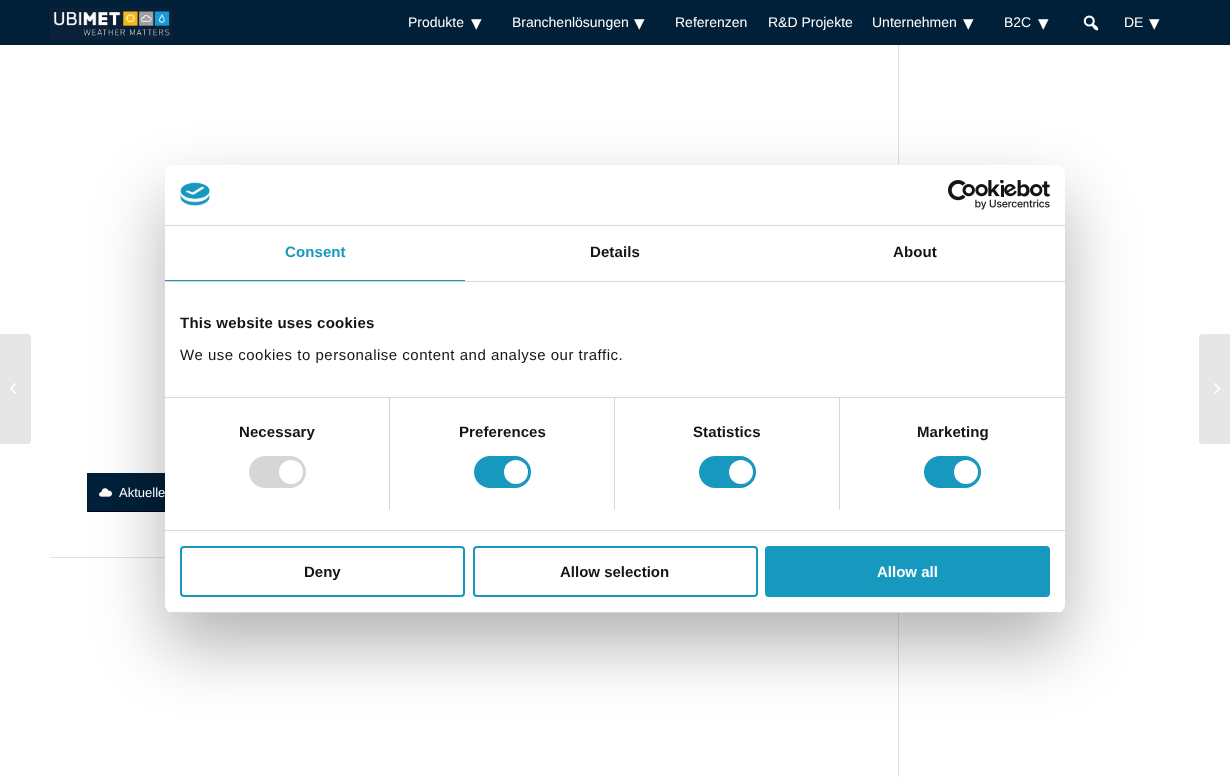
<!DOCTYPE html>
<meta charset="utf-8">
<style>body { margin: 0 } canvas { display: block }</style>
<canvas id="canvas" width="1230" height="777"></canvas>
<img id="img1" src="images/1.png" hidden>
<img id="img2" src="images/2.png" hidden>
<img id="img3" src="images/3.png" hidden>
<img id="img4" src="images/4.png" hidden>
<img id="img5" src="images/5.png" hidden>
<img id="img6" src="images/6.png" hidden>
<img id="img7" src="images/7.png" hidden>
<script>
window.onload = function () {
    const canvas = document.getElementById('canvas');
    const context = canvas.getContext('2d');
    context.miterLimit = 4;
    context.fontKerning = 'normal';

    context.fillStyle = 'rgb(255, 255, 255)';
    context.fillRect(0, 0, 1230, 777);
    context.fillStyle = 'rgb(0, 32, 57)';
    context.fillRect(0, 0, 1230, 45);
    context.drawImage(document.getElementById('img1'), 50, 7, 123, 33);
    context.drawImage(document.getElementById('img2'), 1083, 15, 16, 16);
    context.fillStyle = 'rgb(225, 225, 225)';
    context.fillRect(898, 45, 1, 732);
    context.fillStyle = 'rgb(0, 32, 57)';
    context.fillRect(87, 473, 78, 38);
    context.fillStyle = 'rgb(0, 0, 23)';
    context.fillRect(87, 511, 78, 1);
    context.drawImage(document.getElementById('img3'), 99, 488, 13, 9);
    context.fillStyle = 'rgb(225, 225, 225)';
    context.fillRect(50, 557, 115, 1);
    context.fillStyle = 'rgb(230, 230, 230)';
    context.beginPath();
    context.roundRect(0, 334, 31, 110, [0, 4, 4, 0]);
    context.fill();
    context.drawImage(document.getElementById('img4'), 10, 383, 7, 11);
    context.fillStyle = 'rgba(0, 0, 0, 0.3)';
    context.filter = 'blur(34px)';
    context.beginPath();
    context.roundRect(165, 197, 900, 448, 8);
    context.fill();
    context.filter = 'none';
    context.fillStyle = 'rgb(255, 255, 255)';
    context.beginPath();
    context.roundRect(165, 165, 900, 448, 8);
    context.fill();
    context.fillStyle = 'rgb(214, 214, 214)';
    context.fillRect(165, 225, 900, 1);
    context.drawImage(document.getElementById('img5'), 180, 182, 30, 24);
    context.drawImage(document.getElementById('img6'), 948, 180, 102, 30);
    context.fillRect(165, 281, 900, 1);
    context.fillStyle = 'rgb(23, 152, 191)';
    context.fillRect(165, 280, 300, 1);
    context.fillStyle = 'rgb(214, 214, 214)';
    context.fillRect(165, 397, 900, 1);
    context.fillRect(165, 530, 900, 1);
    context.fillRect(389, 398, 1, 112);
    context.beginPath();
    context.roundRect(249, 456, 57, 32, 16);
    context.fill();
    context.fillStyle = 'rgb(255, 255, 255)';
    context.beginPath();
    context.arc(291, 472, 12, 0, 2 * Math.PI);
    context.fill();
    context.fillStyle = 'rgb(214, 214, 214)';
    context.fillRect(614, 398, 1, 112);
    context.fillStyle = 'rgb(23, 152, 191)';
    context.beginPath();
    context.roundRect(474, 456, 57, 32, 16);
    context.fill();
    context.fillStyle = 'rgb(255, 255, 255)';
    context.beginPath();
    context.arc(516, 472, 12, 0, 2 * Math.PI);
    context.fill();
    context.fillStyle = 'rgb(214, 214, 214)';
    context.fillRect(839, 398, 1, 112);
    context.fillStyle = 'rgb(23, 152, 191)';
    context.beginPath();
    context.roundRect(699, 456, 57, 32, 16);
    context.fill();
    context.fillStyle = 'rgb(255, 255, 255)';
    context.beginPath();
    context.arc(741, 472, 12, 0, 2 * Math.PI);
    context.fill();
    context.fillStyle = 'rgb(23, 152, 191)';
    context.beginPath();
    context.roundRect(924, 456, 57, 32, 16);
    context.fill();
    context.fillStyle = 'rgb(255, 255, 255)';
    context.beginPath();
    context.arc(966, 472, 12, 0, 2 * Math.PI);
    context.fill();
    context.save();
    context.beginPath();
    context.roundRect(165, 165, 900, 448, 8);
    context.clip();
    context.fillStyle = 'rgb(214, 214, 214)';
    context.fillRect(165, 612, 900, 1);
    context.restore();
    context.beginPath();
    context.roundRect(181, 547, 283, 49, 3);
    context.strokeStyle = 'rgb(23, 152, 191)';
    context.lineWidth = 2;
    context.stroke();
    context.beginPath();
    context.roundRect(474, 547, 283, 49, 3);
    context.stroke();
    context.fillStyle = 'rgb(23, 152, 191)';
    context.beginPath();
    context.roundRect(766, 547, 283, 49, 3);
    context.fill();
    context.stroke();
    context.fillStyle = 'rgb(230, 230, 230)';
    context.beginPath();
    context.roundRect(1199, 334, 31, 110, [4, 0, 0, 4]);
    context.fill();
    context.drawImage(document.getElementById('img7'), 1214, 383, 7, 11);
    context.font = '14px Liberation Sans';
    context.fillStyle = 'rgb(255, 255, 255)';
    context.fillText('Produkte', 408, 27);
    context.font = '21px DejaVu Sans';
    context.fillText('▾', 471, 30);
    context.font = '14px Liberation Sans';
    context.fillText('Branchenlösungen', 512, 27);
    context.font = '21px DejaVu Sans';
    context.fillText('▾', 634, 30);
    context.font = '14px Liberation Sans';
    context.fillText('Referenzen', 675, 27);
    context.fillText('R&D Projekte', 768, 27);
    context.fillText('Unternehmen', 872, 27);
    context.font = '21px DejaVu Sans';
    context.fillText('▾', 963, 30);
    context.font = '14px Liberation Sans';
    context.fillText('B2C', 1004, 27);
    context.font = '21px DejaVu Sans';
    context.fillText('▾', 1038, 30);
    context.font = '14px Liberation Sans';
    context.fillText('DE', 1124, 27);
    context.font = '21px DejaVu Sans';
    context.fillText('▾', 1149, 30);
    context.font = '13px Liberation Sans';
    context.fillText('Aktuelle', 119, 497);
    context.letterSpacing = '0.1px';
    context.font = 'bold 15px Liberation Sans';
    context.fillStyle = 'rgb(23, 152, 191)';
    context.fillText('Consent', 285, 257);
    context.fillStyle = 'rgb(20, 20, 20)';
    context.fillText('Details', 590, 257);
    context.fillText('About', 893, 257);
    context.letterSpacing = '0.25px';
    context.fillText('This website uses cookies', 180, 328);
    context.letterSpacing = '0.5px';
    context.font = '15px Liberation Sans';
    context.fillText('We use cookies to personalise content and analyse our traffic.', 180, 360);
    context.letterSpacing = '0.1px';
    context.font = 'bold 15px Liberation Sans';
    context.fillText('Necessary', 239, 437);
    context.fillText('Preferences', 459, 437);
    context.fillText('Statistics', 693, 437);
    context.fillText('Marketing', 917, 437);
    context.letterSpacing = '0px';
    context.fillText('Deny', 304, 577);
    context.fillText('Allow selection', 560, 577);
    context.fillStyle = 'rgb(255, 255, 255)';
    context.fillText('Allow all', 877, 577);
};
</script>
